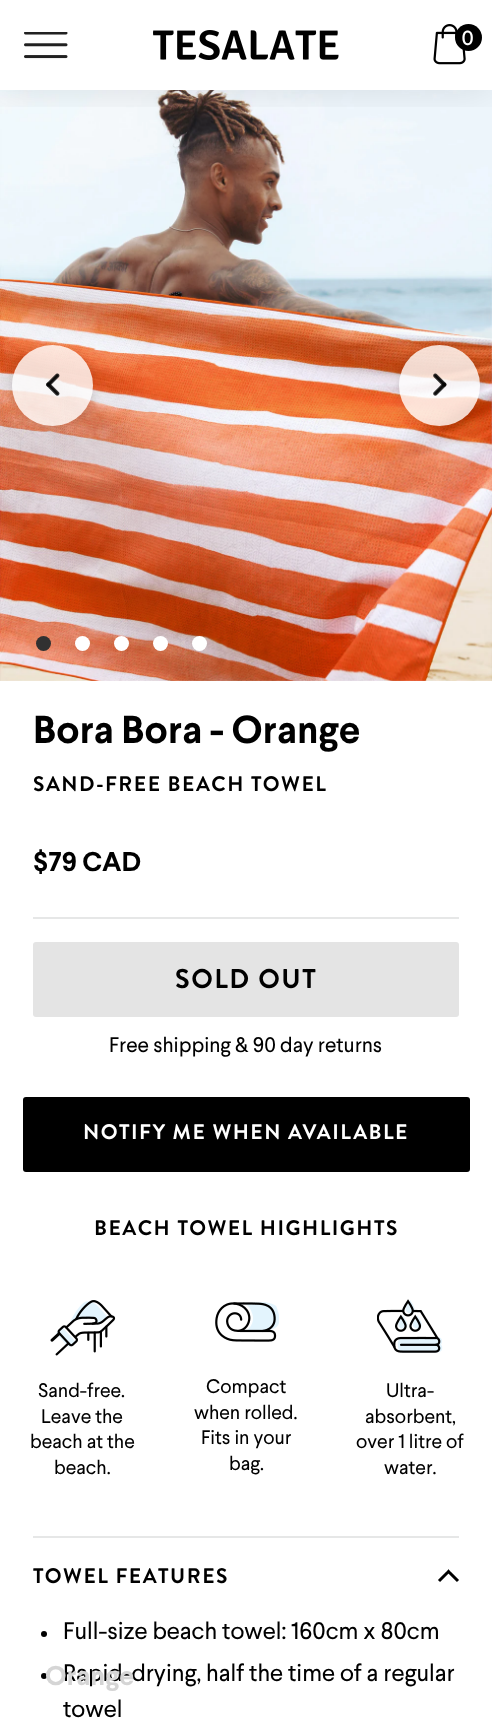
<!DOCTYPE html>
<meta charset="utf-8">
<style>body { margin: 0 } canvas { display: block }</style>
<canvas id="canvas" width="492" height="1723"></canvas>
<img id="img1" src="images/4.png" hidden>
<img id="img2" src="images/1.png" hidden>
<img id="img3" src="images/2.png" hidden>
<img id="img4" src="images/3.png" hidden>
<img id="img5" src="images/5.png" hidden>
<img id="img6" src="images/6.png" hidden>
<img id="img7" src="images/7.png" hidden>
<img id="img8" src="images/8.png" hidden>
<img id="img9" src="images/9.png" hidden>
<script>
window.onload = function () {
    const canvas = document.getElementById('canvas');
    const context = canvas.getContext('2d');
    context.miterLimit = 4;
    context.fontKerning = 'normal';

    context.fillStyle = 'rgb(255, 255, 255)';
    context.fillRect(0, 0, 492, 1723);
    context.drawImage(document.getElementById('img1'), 0, 90, 492, 591);
    context.save();
    context.beginPath();
    context.rect(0, 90, 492, 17);
    context.clip();
    context.fillStyle = 'rgba(0, 0, 0, 0.09)';
    context.filter = 'blur(18px)';
    context.beginPath();
    context.rect(0, 3, 492, 90);
    context.fill();
    context.filter = 'none';
    context.restore();
    context.drawImage(document.getElementById('img2'), 24, 32, 44, 27);
    context.drawImage(document.getElementById('img3'), 153, 30, 186, 30);
    context.drawImage(document.getElementById('img4'), 433, 24, 33, 41);
    context.fillStyle = 'rgb(0, 0, 0)';
    context.beginPath();
    context.arc(468.5, 37.5, 13.5, 0, 2 * Math.PI);
    context.fill();
    context.save();
    context.beginPath();
    context.moveTo(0, 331);
    context.lineTo(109, 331);
    context.lineTo(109, 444);
    context.lineTo(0, 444);
    context.closePath();
    context.moveTo(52.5, 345);
    context.bezierCurveTo(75, 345, 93, 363, 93, 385.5);
    context.bezierCurveTo(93, 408, 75, 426, 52.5, 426);
    context.bezierCurveTo(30, 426, 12, 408, 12, 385.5);
    context.bezierCurveTo(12, 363, 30, 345, 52.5, 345);
    context.closePath();
    context.clip('evenodd');
    context.fillStyle = 'rgba(0, 0, 0, 0.11)';
    context.filter = 'blur(5px)';
    context.beginPath();
    context.roundRect(12, 347, 81, 81, 40.5);
    context.fill();
    context.filter = 'none';
    context.restore();
    context.fillStyle = 'rgba(255, 255, 255, 0.8)';
    context.beginPath();
    context.arc(52.5, 385.5, 40.5, 0, 2 * Math.PI);
    context.fill();
    context.drawImage(document.getElementById('img5'), 46, 373, 14, 23);
    context.save();
    context.beginPath();
    context.moveTo(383, 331);
    context.lineTo(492, 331);
    context.lineTo(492, 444);
    context.lineTo(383, 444);
    context.closePath();
    context.moveTo(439.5, 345);
    context.bezierCurveTo(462, 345, 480, 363, 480, 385.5);
    context.bezierCurveTo(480, 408, 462, 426, 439.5, 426);
    context.bezierCurveTo(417, 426, 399, 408, 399, 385.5);
    context.bezierCurveTo(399, 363, 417, 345, 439.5, 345);
    context.closePath();
    context.clip('evenodd');
    context.fillStyle = 'rgba(0, 0, 0, 0.11)';
    context.filter = 'blur(5px)';
    context.beginPath();
    context.roundRect(399, 347, 81, 81, 40.5);
    context.fill();
    context.filter = 'none';
    context.restore();
    context.beginPath();
    context.arc(439.5, 385.5, 40.5, 0, 2 * Math.PI);
    context.fill();
    context.drawImage(document.getElementById('img6'), 433, 373, 14, 23);
    context.fillStyle = 'rgb(49, 49, 49)';
    context.beginPath();
    context.arc(43.5, 643.5, 7.5, 0, 2 * Math.PI);
    context.fill();
    context.fillStyle = 'rgb(255, 255, 255)';
    context.beginPath();
    context.arc(82.5, 643.5, 7.5, 0, 2 * Math.PI);
    context.fill();
    context.beginPath();
    context.arc(121.5, 643.5, 7.5, 0, 2 * Math.PI);
    context.fill();
    context.beginPath();
    context.arc(160.5, 643.5, 7.5, 0, 2 * Math.PI);
    context.fill();
    context.beginPath();
    context.arc(199.5, 643.5, 7.5, 0, 2 * Math.PI);
    context.fill();
    context.fillStyle = 'rgb(230, 231, 231)';
    context.fillRect(33, 917, 426, 2);
    context.fillStyle = 'rgb(228, 228, 228)';
    context.beginPath();
    context.roundRect(33, 942, 426, 75, 3);
    context.fill();
    context.fillStyle = 'rgb(0, 0, 0)';
    context.beginPath();
    context.roundRect(23, 1097, 447, 75, 3);
    context.fill();
    context.drawImage(document.getElementById('img7'), 50, 1300, 66, 56);
    context.drawImage(document.getElementById('img8'), 215, 1302, 64, 40);
    context.drawImage(document.getElementById('img9'), 377, 1299, 66, 54);
    context.fillStyle = 'rgb(230, 231, 231)';
    context.fillRect(33, 1536, 426, 2);
    context.beginPath();
    context.moveTo(458, 1581);
    context.lineTo(447.5, 1570.5);
    context.moveTo(439, 1581);
    context.lineTo(449.5, 1570.5);
    context.strokeStyle = 'rgb(0, 0, 0)';
    context.lineWidth = 3;
    context.stroke();
    context.fillStyle = 'rgb(0, 0, 0)';
    context.beginPath();
    context.arc(44, 1634, 3, 0, 2 * Math.PI);
    context.fill();
    context.beginPath();
    context.arc(44, 1676, 3, 0, 2 * Math.PI);
    context.fill();
    context.font = '500 21px Brandon Grotesque';
    context.fillStyle = 'rgb(255, 255, 255)';
    context.fillText('0', 461, 45);
    context.font = '39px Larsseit';
    context.fillStyle = 'rgb(0, 0, 0)';
    context.fillText('Bora Bora - Orange', 33, 743);
    context.letterSpacing = '1.5px';
    context.font = 'bold 21px Brandon Grotesque';
    context.fillText('SAND-FREE BEACH TOWEL', 33, 791);
    context.letterSpacing = '0px';
    context.font = '27px Larsseit';
    context.fillText('$79 CAD', 33, 871);
    context.letterSpacing = '1.5px';
    context.font = 'bold 27px Brandon Grotesque';
    context.fillText('SOLD OUT', 175, 988);
    context.letterSpacing = '0px';
    context.font = '21px "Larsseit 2"';
    context.fillText('Free shipping & 90 day returns', 109, 1052);
    context.letterSpacing = '1.5px';
    context.font = 'bold 21px Brandon Grotesque';
    context.fillStyle = 'rgb(255, 255, 255)';
    context.fillText('NOTIFY ME WHEN AVAILABLE', 83, 1139);
    context.fillStyle = 'rgb(0, 0, 0)';
    context.fillText('BEACH TOWEL HIGHLIGHTS', 94, 1235);
    context.letterSpacing = '0px';
    context.font = '19.5px "Larsseit 2"';
    context.fillText('Sand-free.', 38, 1397);
    context.fillText('Leave the', 41, 1423);
    context.fillText('beach at the', 30, 1448);
    context.fillText('beach.', 54, 1474);
    context.fillText('Compact', 206, 1393);
    context.fillText('when rolled.', 194, 1419);
    context.fillText('Fits in your', 201, 1444);
    context.fillText('bag.', 229, 1470);
    context.fillText('Ultra-', 386, 1397);
    context.fillText('absorbent,', 365, 1423);
    context.fillText('over 1 litre of', 356, 1448);
    context.fillText('water.', 384, 1474);
    context.letterSpacing = '1.5px';
    context.font = 'bold 21px Brandon Grotesque';
    context.fillText('TOWEL FEATURES', 33, 1583);
    context.letterSpacing = '0px';
    context.font = '24px "Larsseit 2"';
    context.fillText('Full-size beach towel: 160cm x 80cm', 63, 1639);
    context.fillText('Rapid-drying, half the time of a regular', 63, 1681);
    context.fillText('towel', 63, 1717);
    context.font = '27px Larsseit';
    context.fillStyle = 'rgb(213, 213, 213)';
    context.fillText('Orange', 45, 1685);
};
</script>
